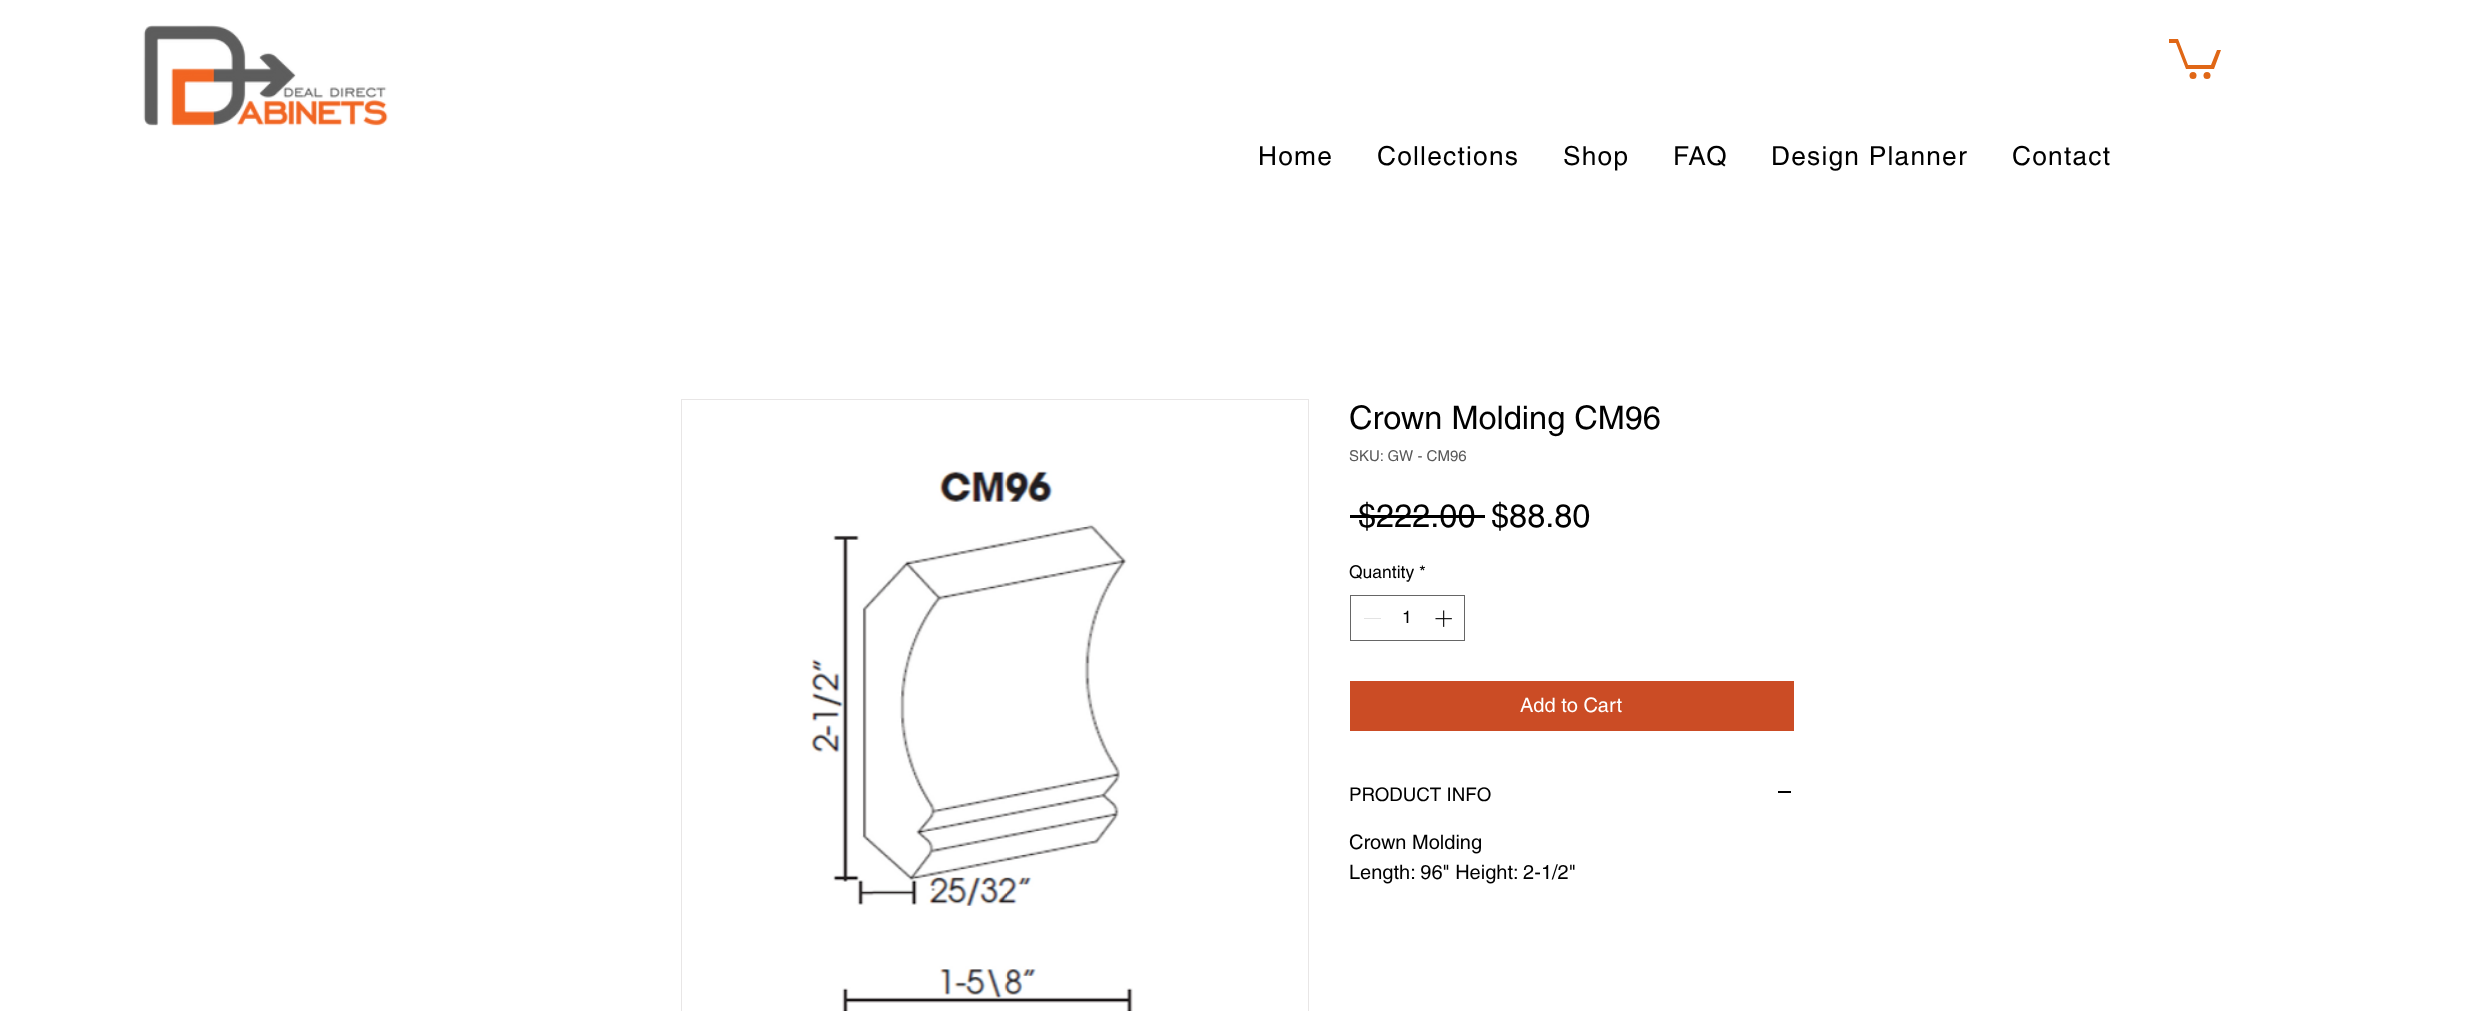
<!DOCTYPE html>
<meta charset="utf-8">
<style>body { margin: 0 } canvas { display: block }</style>
<canvas id="canvas" width="2473" height="1011"></canvas>
<img id="img1" src="images/1.png" hidden>
<img id="img2" src="images/2.png" hidden>
<img id="img3" src="images/3.png" hidden>
<script>
window.onload = function () {
    const canvas = document.getElementById('canvas');
    const context = canvas.getContext('2d');
    context.miterLimit = 4;
    context.fontKerning = 'normal';

    context.fillStyle = 'rgb(255, 255, 255)';
    context.fillRect(0, 0, 2473, 1011);
    context.drawImage(document.getElementById('img1'), 143, 25, 245, 101);
    context.fillStyle = 'rgb(224, 103, 22)';
    context.beginPath();
    context.moveTo(2221, 50);
    context.lineTo(2214, 69);
    context.lineTo(2186, 69);
    context.lineTo(2176, 43);
    context.lineTo(2169, 43);
    context.lineTo(2169, 39);
    context.lineTo(2178, 39);
    context.lineTo(2188, 65);
    context.lineTo(2211, 65);
    context.lineTo(2217, 50);
    context.fill();
    context.beginPath();
    context.arc(2207, 75.5, 3.5, 0, 2 * Math.PI);
    context.fill();
    context.beginPath();
    context.arc(2193, 75.5, 3.5, 0, 2 * Math.PI);
    context.fill();
    context.strokeStyle = 'rgb(232, 230, 230)';
    context.strokeRect(681.5, 399.5, 627, 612);
    context.drawImage(document.getElementById('img2'), 810, 471, 323, 540);
    context.fillStyle = 'rgb(0, 0, 0)';
    context.fillRect(1350, 515, 135, 3);
    context.strokeStyle = 'rgb(102, 102, 102)';
    context.strokeRect(1350.5, 595.5, 114, 45);
    context.fillStyle = 'rgb(227, 227, 227)';
    context.fillRect(1364, 618, 17, 1);
    context.drawImage(document.getElementById('img3'), 1435, 610, 17, 17);
    context.fillStyle = 'rgb(203, 76, 37)';
    context.fillRect(1350, 681, 444, 50);
    context.fillStyle = 'rgb(0, 0, 0)';
    context.fillRect(1778, 791, 13, 2);
    context.letterSpacing = '1.25px';
    context.font = '26.25px helvetica';
    context.fillText('Home', 1258, 165);
    context.fillText('Collections', 1377, 165);
    context.fillText('Shop', 1563, 165);
    context.fillText('FAQ', 1673, 165);
    context.fillText('Design Planner', 1771, 165);
    context.fillText('Contact', 2012, 165);
    context.letterSpacing = '0px';
    context.font = '32.5px helvetica';
    context.fillText('Crown Molding CM96', 1349, 429);
    context.font = '15px helvetica';
    context.fillStyle = 'rgb(89, 89, 89)';
    context.fillText('SKU: GW - CM96', 1349, 461);
    context.font = '32.5px helvetica';
    context.fillStyle = 'rgb(0, 0, 0)';
    context.fillText('$222.00', 1358, 527);
    context.fillText('$88.80', 1491, 527);
    context.font = '17.5px helvetica';
    context.fillText('Quantity *', 1349, 578);
    context.fillText('1', 1402, 623);
    context.font = '20px helvetica';
    context.fillStyle = 'rgb(255, 255, 255)';
    context.fillText('Add to Cart', 1520, 712);
    context.font = '18.75px helvetica';
    context.fillStyle = 'rgb(0, 0, 0)';
    context.fillText('PRODUCT INFO', 1349, 801);
    context.font = '20px helvetica';
    context.fillText('Crown Molding', 1349, 849);
    context.fillText('Length: 96" Height: 2-1/2"', 1349, 879);
};
</script>
